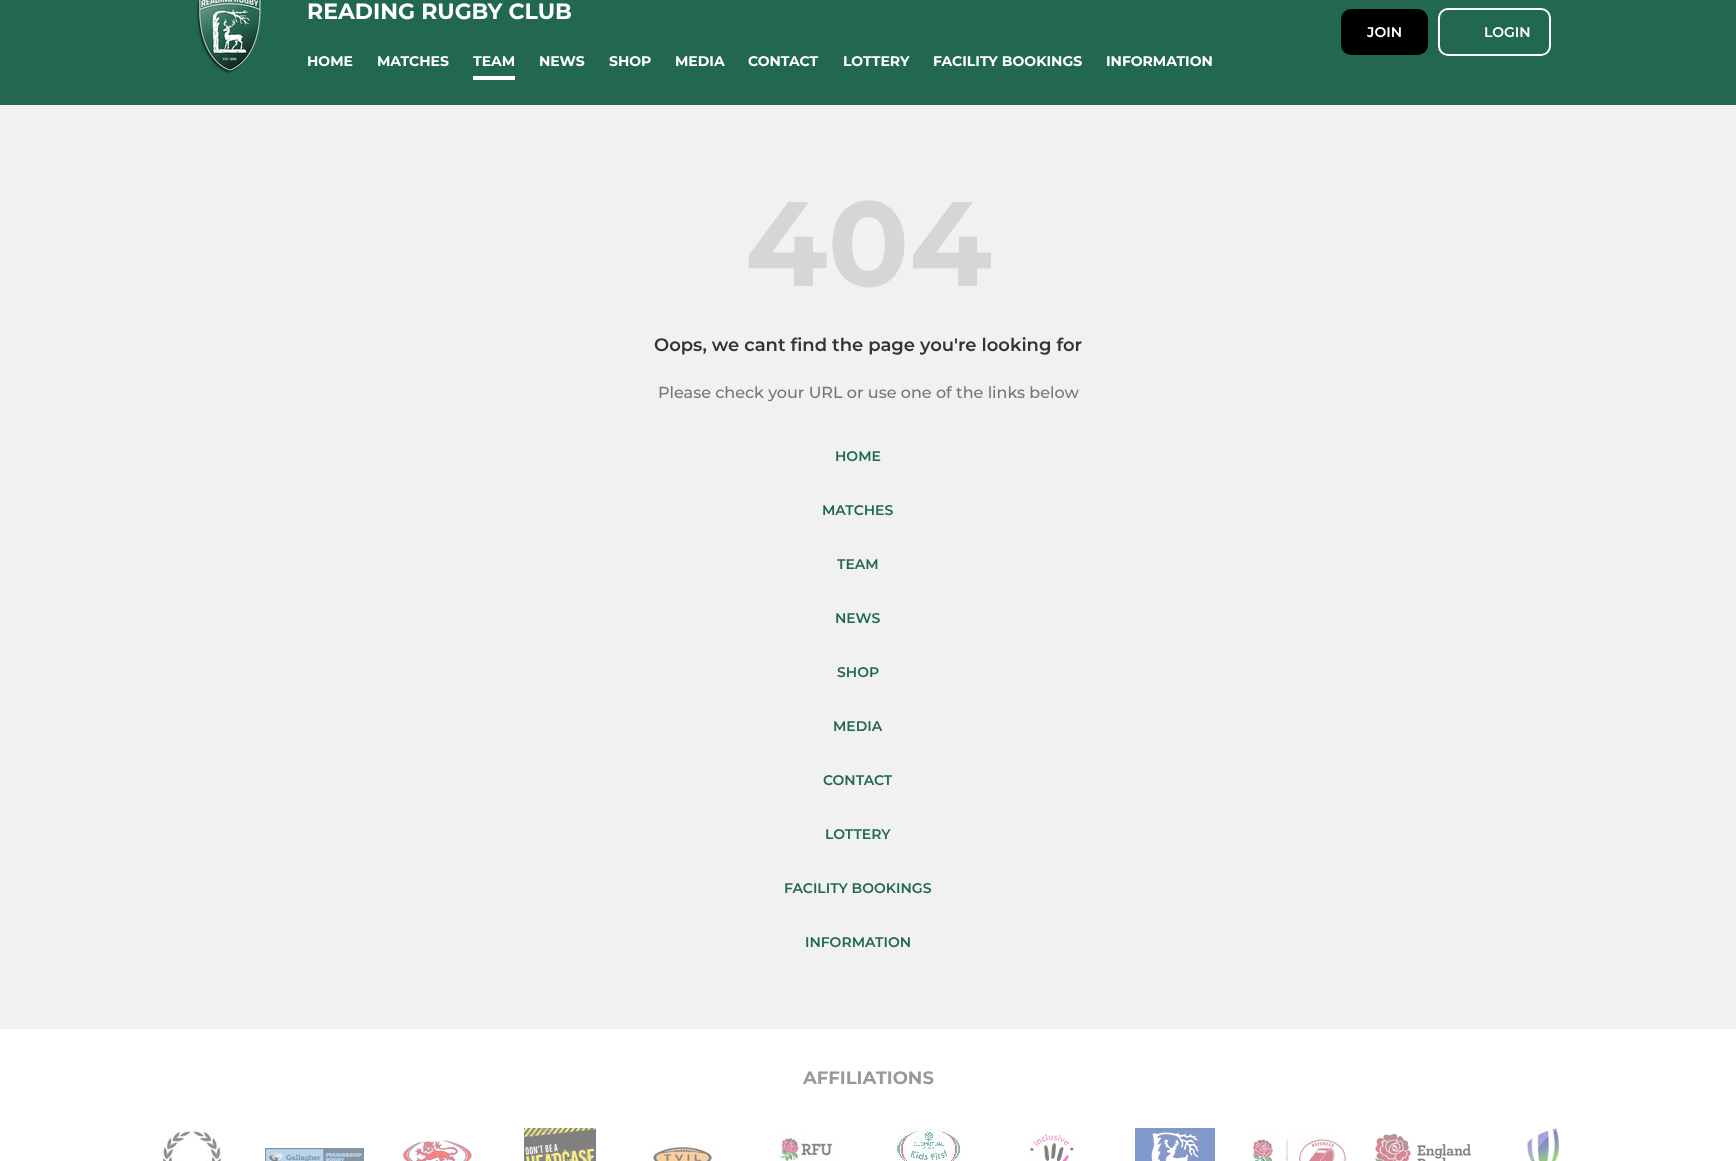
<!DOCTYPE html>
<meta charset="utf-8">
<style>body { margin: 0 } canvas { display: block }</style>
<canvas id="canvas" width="1736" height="1161"></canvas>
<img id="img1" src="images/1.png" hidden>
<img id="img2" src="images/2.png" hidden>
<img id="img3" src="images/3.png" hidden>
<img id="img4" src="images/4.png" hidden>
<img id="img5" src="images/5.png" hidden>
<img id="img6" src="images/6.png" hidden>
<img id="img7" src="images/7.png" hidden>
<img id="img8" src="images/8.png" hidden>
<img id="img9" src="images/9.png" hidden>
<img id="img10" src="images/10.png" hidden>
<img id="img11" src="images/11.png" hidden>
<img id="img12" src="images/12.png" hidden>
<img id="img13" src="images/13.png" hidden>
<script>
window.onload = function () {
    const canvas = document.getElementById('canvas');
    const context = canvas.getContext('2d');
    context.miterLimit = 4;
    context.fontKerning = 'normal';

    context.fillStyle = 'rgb(241, 241, 241)';
    context.fillRect(0, 0, 1736, 1161);
    context.fillStyle = 'rgb(33, 104, 79)';
    context.fillRect(0, 0, 1736, 105);
    context.drawImage(document.getElementById('img1'), 197, 0, 64, 74);
    context.fillStyle = 'rgb(255, 255, 255)';
    context.fillRect(473, 76, 42, 4);
    context.fillStyle = 'rgb(0, 0, 0)';
    context.beginPath();
    context.roundRect(1342, 10, 85, 44, 9);
    context.fill();
    context.strokeStyle = 'rgb(0, 0, 0)';
    context.lineWidth = 2;
    context.stroke();
    context.beginPath();
    context.roundRect(1439, 9, 111, 46, 9);
    context.strokeStyle = 'rgb(255, 255, 255)';
    context.stroke();
    context.fillStyle = 'rgb(255, 255, 255)';
    context.fillRect(0, 1029, 1736, 132);
    context.drawImage(document.getElementById('img2'), 159, 1128, 63, 33);
    context.drawImage(document.getElementById('img3'), 265, 1148, 99, 13);
    context.drawImage(document.getElementById('img4'), 401, 1139, 72, 22);
    context.drawImage(document.getElementById('img5'), 524, 1128, 72, 33);
    context.drawImage(document.getElementById('img6'), 650, 1143, 65, 18);
    context.drawImage(document.getElementById('img7'), 773, 1128, 64, 33);
    context.drawImage(document.getElementById('img8'), 895, 1128, 66, 33);
    context.drawImage(document.getElementById('img9'), 1030, 1132, 45, 29);
    context.drawImage(document.getElementById('img10'), 1135, 1128, 80, 33);
    context.drawImage(document.getElementById('img11'), 1249, 1128, 99, 33);
    context.drawImage(document.getElementById('img12'), 1375, 1133, 96, 28);
    context.drawImage(document.getElementById('img13'), 1527, 1128, 33, 33);
    context.font = 'bold 22px Montserrat';
    context.fillText('READING RUGBY CLUB', 307, 19);
    context.font = 'bold 14px Montserrat';
    context.fillText('HOME', 307, 66);
    context.fillText('MATCHES', 377, 66);
    context.fillText('TEAM', 473, 66);
    context.fillText('NEWS', 539, 66);
    context.fillText('SHOP', 609, 66);
    context.fillText('MEDIA', 675, 66);
    context.fillText('CONTACT', 748, 66);
    context.fillText('LOTTERY', 843, 66);
    context.fillText('FACILITY BOOKINGS', 933, 66);
    context.fillText('INFORMATION', 1106, 66);
    context.font = '600 14px Montserrat';
    context.fillText('JOIN', 1367, 37);
    context.fillText('LOGIN', 1484, 37);
    context.font = 'bold 120px Montserrat';
    context.fillStyle = 'rgb(214, 214, 214)';
    context.fillText('404', 745, 286);
    context.font = '600 18px Montserrat';
    context.fillStyle = 'rgb(51, 51, 51)';
    context.fillText('Oops, we cant find the page you\'re looking for', 654, 351);
    context.font = '500 16px Montserrat';
    context.fillStyle = 'rgb(118, 118, 118)';
    context.fillText('Please check your URL or use one of the links below', 658, 398);
    context.font = '600 14px Montserrat';
    context.fillStyle = 'rgb(33, 104, 79)';
    context.fillText('HOME', 835, 461);
    context.fillText('MATCHES', 822, 515);
    context.fillText('TEAM', 837, 569);
    context.fillText('NEWS', 835, 623);
    context.fillText('SHOP', 837, 677);
    context.fillText('MEDIA', 833, 731);
    context.fillText('CONTACT', 823, 785);
    context.fillText('LOTTERY', 825, 839);
    context.fillText('FACILITY BOOKINGS', 784, 893);
    context.fillText('INFORMATION', 805, 947);
    context.font = 'bold 18px Montserrat';
    context.fillStyle = 'rgb(153, 153, 153)';
    context.fillText('AFFILIATIONS', 803, 1084);
};
</script>
